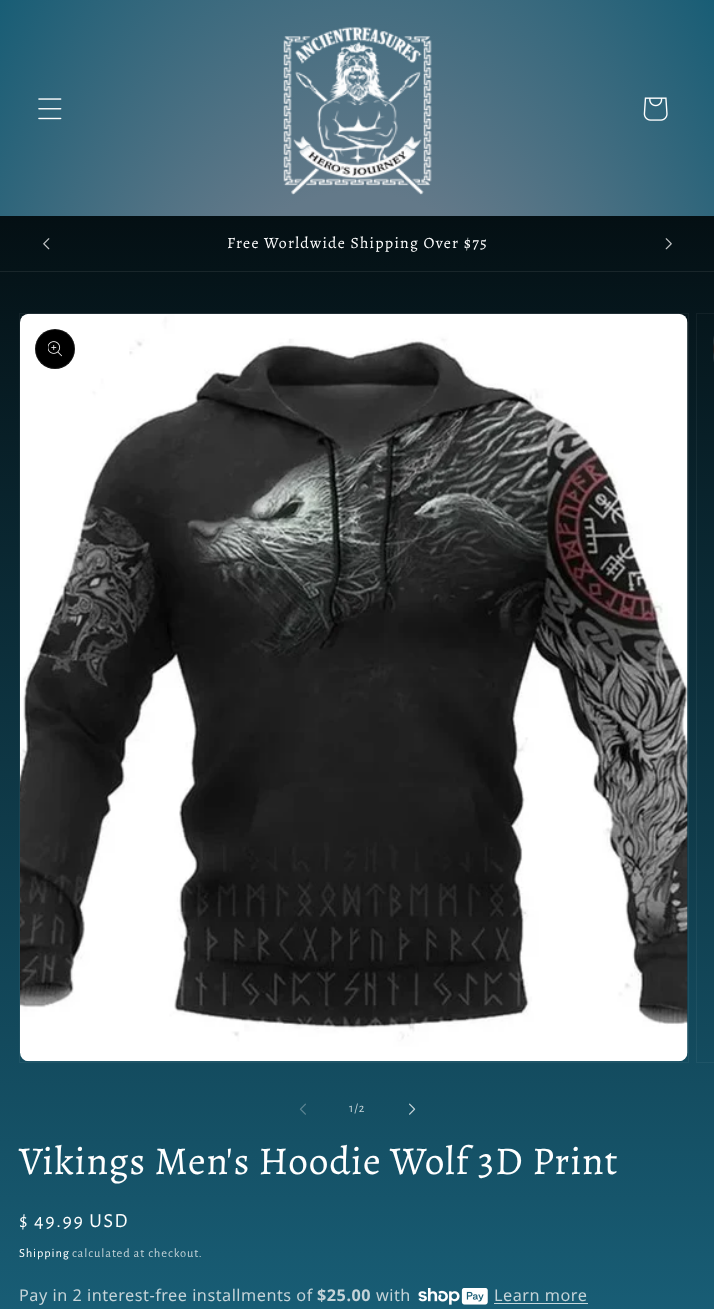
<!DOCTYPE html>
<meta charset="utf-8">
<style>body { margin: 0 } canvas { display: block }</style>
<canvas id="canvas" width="714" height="1309"></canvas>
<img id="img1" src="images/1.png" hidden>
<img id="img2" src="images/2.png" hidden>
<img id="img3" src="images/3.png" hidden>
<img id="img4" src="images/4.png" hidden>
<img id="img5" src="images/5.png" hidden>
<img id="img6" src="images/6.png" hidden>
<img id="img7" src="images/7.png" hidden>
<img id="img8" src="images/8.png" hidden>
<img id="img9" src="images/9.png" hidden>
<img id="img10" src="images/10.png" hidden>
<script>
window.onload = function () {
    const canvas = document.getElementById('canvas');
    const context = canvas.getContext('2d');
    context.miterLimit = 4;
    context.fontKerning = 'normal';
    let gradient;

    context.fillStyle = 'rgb(255, 255, 255)';
    context.fillRect(0, 0, 714, 1309);
    gradient = context.createRadialGradient(358, 357.92, 0, 358, 357.92, 506);
    gradient.addColorStop(0.5, 'rgb(99, 121, 137)');
    gradient.addColorStop(1, 'rgb(24, 93, 117)');
    context.fillStyle = gradient;
    context.beginPath();
    context.rect(0, 0, 714, 216);
    context.save();
    context.clip();
    context.scale(1, 926 / 506);
    context.fillRect(0, 0, 714, 716);
    context.restore();
    context.drawImage(document.getElementById('img1'), 38, 98, 24, 22);
    context.drawImage(document.getElementById('img2'), 283, 26, 149, 169);
    context.drawImage(document.getElementById('img3'), 643, 97, 25, 24);
    gradient = context.createLinearGradient(357, 0, 358, 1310);
    gradient.addColorStop(0, 'rgb(0, 0, 0)');
    gradient.addColorStop(1, 'rgb(24, 93, 117)');
    context.fillStyle = gradient;
    context.fillRect(0, 216, 714, 57);
    context.fillStyle = 'rgb(25, 38, 42)';
    context.fillRect(0, 271, 714, 1);
    context.drawImage(document.getElementById('img4'), 43, 238, 7, 12);
    context.drawImage(document.getElementById('img5'), 665, 238, 7, 12);
    gradient = context.createLinearGradient(357, 0, 358, 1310);
    gradient.addColorStop(0, 'rgb(0, 0, 0)');
    gradient.addColorStop(1, 'rgb(24, 93, 117)');
    context.fillStyle = gradient;
    context.fillRect(0, 273, 714, 1036);
    context.strokeStyle = 'rgba(255, 255, 255, 0.05)';
    context.strokeRect(19.5, 313.5, 669, 749);
    context.drawImage(document.getElementById('img6'), 20, 313, 668, 749);
    context.fillStyle = 'rgb(0, 0, 0)';
    context.beginPath();
    context.arc(55, 349, 20, 0, 2 * Math.PI);
    context.fill();
    context.beginPath();
    context.arc(55, 349, 19.5, 0, 2 * Math.PI);
    context.strokeStyle = 'rgba(255, 255, 255, 0.1)';
    context.stroke();
    context.drawImage(document.getElementById('img7'), 48, 341, 14, 16);
    context.strokeStyle = 'rgba(255, 255, 255, 0.05)';
    context.strokeRect(696.5, 313.5, 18, 749);
    context.beginPath();
    context.moveTo(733, 329);
    context.lineTo(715, 329);
    context.lineTo(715, 369);
    context.lineTo(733, 369);
    context.bezierCurveTo(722, 369, 713, 360, 713, 349);
    context.bezierCurveTo(713, 338, 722, 329, 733, 329);
    context.closePath();
    context.fill();
    context.beginPath();
    context.roundRect(713.5, 329.5, 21, 39, 19.5);
    context.strokeStyle = 'rgba(255, 255, 255, 0.1)';
    context.stroke();
    context.drawImage(document.getElementById('img8'), 299, 1103, 7, 12);
    context.drawImage(document.getElementById('img9'), 409, 1103, 7, 12);
    context.drawImage(document.getElementById('img10'), 418, 1288, 70, 17);
    context.fillStyle = 'rgb(197, 215, 220)';
    context.fillRect(494, 1303, 94, 1);
    context.letterSpacing = '1.25px';
    context.font = '15.75px Alegreya';
    context.fillStyle = 'rgb(255, 255, 255)';
    context.fillText('Free Worldwide Shipping Over $75', 227, 248);
    context.letterSpacing = '0.9px';
    context.font = '12.5px Alegreya Sans';
    context.fillStyle = 'rgb(196, 211, 216)';
    context.fillText('1/2', 349, 1112);
    context.letterSpacing = '0.8px';
    context.font = '39.4px Alegreya';
    context.fillStyle = 'rgb(255, 255, 255)';
    context.fillText('Vikings Men\'s Hoodie Wolf 3D Print', 19, 1174);
    context.letterSpacing = '1.6px';
    context.font = '20px Alegreya Sans';
    context.fillText('$ 49.99 USD', 19, 1227);
    context.letterSpacing = '0.9px';
    context.font = '12.5px Alegreya Sans';
    context.fillText('Shipping', 19, 1257);
    context.fillStyle = 'rgb(196, 211, 216)';
    context.fillText('calculated at checkout.', 72, 1257);
    context.letterSpacing = '0.5px';
    context.font = '16.25px Noto Sans';
    context.fillText('Pay in 2 interest-free installments of', 19, 1301);
    context.font = 'bold 16.25px Noto Sans';
    context.fillText('$25.00', 317, 1301);
    context.font = '16.25px Noto Sans';
    context.fillText('with', 376, 1301);
    context.fillText('Learn more', 494, 1301);
};
</script>
